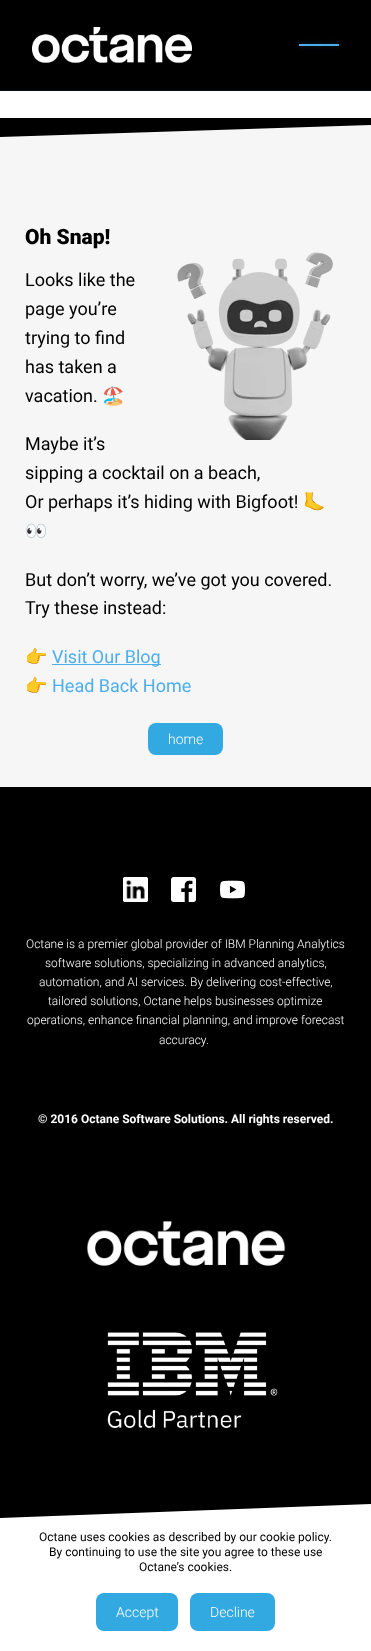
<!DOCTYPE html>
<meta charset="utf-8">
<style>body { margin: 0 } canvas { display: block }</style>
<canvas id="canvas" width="371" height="1651"></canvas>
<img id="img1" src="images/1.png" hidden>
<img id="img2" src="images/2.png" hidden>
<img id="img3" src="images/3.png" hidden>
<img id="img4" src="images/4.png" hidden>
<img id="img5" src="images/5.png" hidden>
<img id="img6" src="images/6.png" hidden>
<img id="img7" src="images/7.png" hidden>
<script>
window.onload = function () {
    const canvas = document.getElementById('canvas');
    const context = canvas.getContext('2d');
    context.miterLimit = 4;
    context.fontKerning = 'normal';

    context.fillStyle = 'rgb(255, 255, 255)';
    context.fillRect(0, 0, 371, 1651);
    context.fillStyle = 'rgb(0, 0, 0)';
    context.fillRect(0, 0, 371, 90);
    context.fillStyle = 'rgb(8, 17, 24)';
    context.fillRect(0, 90, 371, 1);
    context.drawImage(document.getElementById('img1'), 32, 27, 160, 36);
    context.fillStyle = 'rgba(77, 174, 235, 0.3)';
    context.filter = 'blur(2.5px)';
    context.beginPath();
    context.rect(299, 44, 13, 2);
    context.fill();
    context.filter = 'none';
    context.fillStyle = 'rgb(77, 174, 235)';
    context.fillRect(299, 44, 13, 2);
    context.fillStyle = 'rgba(77, 174, 235, 0.3)';
    context.filter = 'blur(2.5px)';
    context.beginPath();
    context.rect(312, 44, 14, 2);
    context.fill();
    context.filter = 'none';
    context.fillStyle = 'rgb(77, 174, 235)';
    context.fillRect(312, 44, 14, 2);
    context.fillStyle = 'rgba(77, 174, 235, 0.3)';
    context.filter = 'blur(2.5px)';
    context.beginPath();
    context.rect(326, 44, 13, 2);
    context.fill();
    context.filter = 'none';
    context.fillStyle = 'rgb(77, 174, 235)';
    context.fillRect(326, 44, 13, 2);
    context.fillStyle = 'rgb(246, 246, 246)';
    context.fillRect(0, 125, 371, 662);
    context.fillStyle = 'rgb(0, 0, 0)';
    context.beginPath();
    context.moveTo(371, 118);
    context.lineTo(371, 125);
    context.lineTo(0, 137);
    context.lineTo(0, 118);
    context.closePath();
    context.fill();
    context.drawImage(document.getElementById('img2'), 177, 252, 156, 188);
    context.fillStyle = 'rgb(77, 174, 235)';
    context.fillRect(52, 664, 109, 1);
    context.fillStyle = 'rgb(51, 169, 225)';
    context.beginPath();
    context.roundRect(148, 723, 75, 32, 8);
    context.fill();
    context.fillStyle = 'rgb(0, 0, 0)';
    context.fillRect(0, 787, 371, 731);
    context.drawImage(document.getElementById('img3'), 123, 877, 25, 25);
    context.drawImage(document.getElementById('img4'), 171, 877, 25, 25);
    context.drawImage(document.getElementById('img5'), 220, 880, 25, 19);
    context.drawImage(document.getElementById('img6'), 86, 1221, 200, 45);
    context.drawImage(document.getElementById('img7'), 107, 1332, 171, 97);
    context.fillStyle = 'rgb(255, 255, 255)';
    context.beginPath();
    context.moveTo(0, 1518);
    context.lineTo(0, 1651);
    context.lineTo(371, 1651);
    context.lineTo(371, 1504);
    context.closePath();
    context.fill();
    context.fillStyle = 'rgb(51, 169, 225)';
    context.beginPath();
    context.roundRect(96, 1593, 82, 38, 8);
    context.fill();
    context.beginPath();
    context.roundRect(190, 1593, 85, 38, 8);
    context.fill();
    context.font = '900 21px Roboto';
    context.fillStyle = 'rgb(0, 0, 0)';
    context.fillText('Oh Snap!', 25, 244);
    context.font = '18px Roboto';
    context.fillText('Looks like the', 25, 286);
    context.fillText('page you’re', 25, 315);
    context.fillText('trying to find', 25, 344);
    context.fillText('has taken a', 25, 373);
    context.fillText('vacation.', 25, 402);
    context.font = '18px Noto Color Emoji';
    context.fillText('🏖️', 102, 402);
    context.font = '18px Roboto';
    context.fillText('Maybe it’s', 25, 450);
    context.fillText('sipping a cocktail on a beach,', 25, 479);
    context.fillText('Or perhaps it’s hiding with Bigfoot!', 25, 508);
    context.font = '18px Noto Color Emoji';
    context.fillText('🦶', 303, 508);
    context.fillText('👀', 25, 537);
    context.font = '18px Roboto';
    context.fillText('But don’t worry, we’ve got you covered.', 25, 586);
    context.fillText('Try these instead:', 25, 614);
    context.font = '18px Noto Color Emoji';
    context.fillText('👉', 25, 663);
    context.font = '18px Roboto';
    context.fillStyle = 'rgb(77, 174, 235)';
    context.fillText('Visit Our Blog', 52, 663);
    context.font = '18px Noto Color Emoji';
    context.fillStyle = 'rgb(0, 0, 0)';
    context.fillText('👉', 25, 692);
    context.font = '18px Roboto';
    context.fillStyle = 'rgb(77, 174, 235)';
    context.fillText('Head Back Home', 52, 692);
    context.font = '300 14px Roboto';
    context.fillStyle = 'rgb(255, 255, 255)';
    context.fillText('home', 168, 744);
    context.font = '300 12px Roboto';
    context.fillText('Octane is a premier global provider of IBM Planning Analytics', 26, 948);
    context.fillText('software solutions, specializing in advanced analytics,', 45, 967);
    context.fillText('automation, and AI services. By delivering cost-effective,', 39, 986);
    context.fillText('tailored solutions, Octane helps businesses optimize', 48, 1005);
    context.fillText('operations, enhance financial planning, and improve forecast', 27, 1024);
    context.fillText('accuracy.', 159, 1044);
    context.font = 'bold 12px Roboto';
    context.fillText('© 2016 Octane Software Solutions. All rights reserved.', 38, 1123);
    context.font = '12px Roboto';
    context.fillStyle = 'rgb(0, 0, 0)';
    context.fillText('Octane uses cookies as described by our cookie policy.', 39, 1541);
    context.fillText('By continuing to use the site you agree to these use', 49, 1556);
    context.fillText('Octane’s cookies.', 139, 1571);
    context.font = '300 14px Roboto';
    context.fillStyle = 'rgb(255, 255, 255)';
    context.fillText('Accept', 116, 1617);
    context.fillText('Decline', 210, 1617);
};
</script>
